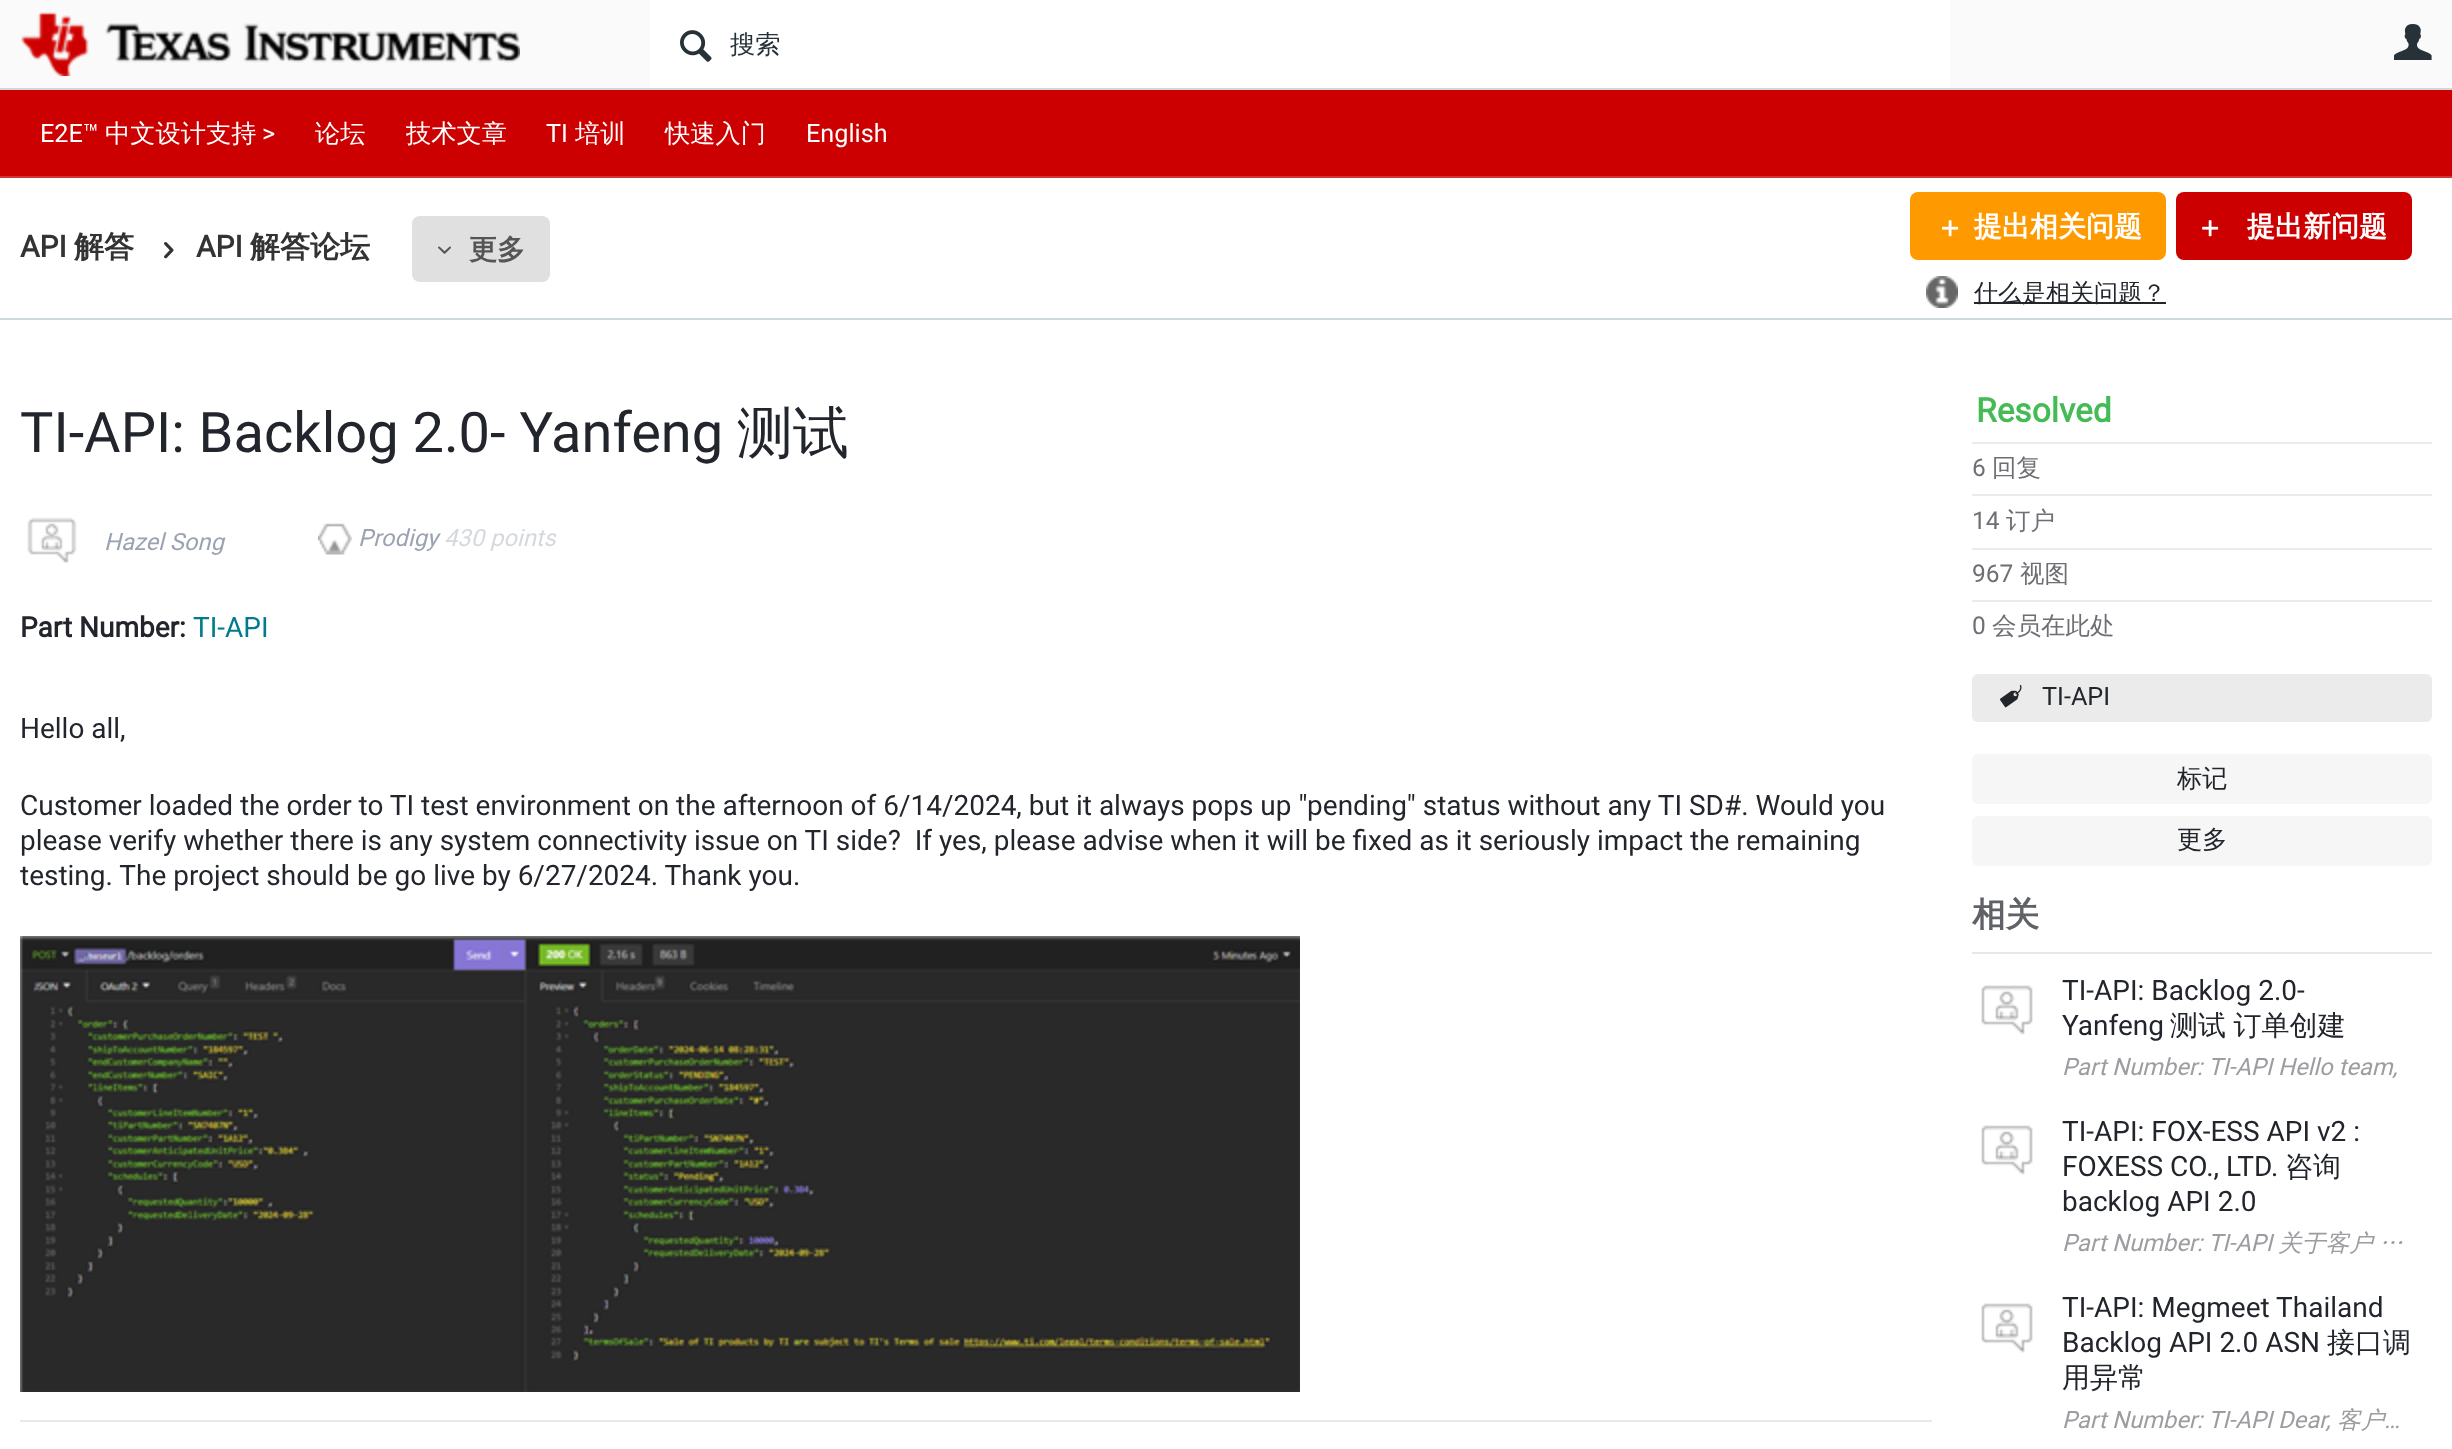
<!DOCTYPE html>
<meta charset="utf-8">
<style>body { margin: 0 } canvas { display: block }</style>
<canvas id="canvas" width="2452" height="1449"></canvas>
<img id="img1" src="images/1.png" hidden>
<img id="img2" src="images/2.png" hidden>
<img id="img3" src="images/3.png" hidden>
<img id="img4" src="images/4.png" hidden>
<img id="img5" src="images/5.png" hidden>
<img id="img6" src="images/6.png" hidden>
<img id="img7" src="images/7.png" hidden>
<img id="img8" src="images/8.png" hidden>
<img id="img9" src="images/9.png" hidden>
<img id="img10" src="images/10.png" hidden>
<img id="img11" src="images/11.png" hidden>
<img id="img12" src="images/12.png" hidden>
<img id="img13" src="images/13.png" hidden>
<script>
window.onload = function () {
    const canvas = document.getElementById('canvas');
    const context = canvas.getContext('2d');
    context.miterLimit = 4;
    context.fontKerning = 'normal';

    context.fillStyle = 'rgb(255, 255, 255)';
    context.fillRect(0, 0, 2452, 1449);
    context.fillStyle = 'rgb(250, 250, 250)';
    context.fillRect(0, 0, 2452, 88);
    context.fillStyle = 'rgb(207, 216, 220)';
    context.fillRect(0, 88, 2452, 2);
    context.drawImage(document.getElementById('img1'), 21, 12, 499, 64);
    context.fillStyle = 'rgb(255, 255, 255)';
    context.fillRect(650, 0, 1300, 88);
    context.drawImage(document.getElementById('img2'), 680, 30, 32, 32);
    context.drawImage(document.getElementById('img3'), 2394, 24, 38, 36);
    context.fillStyle = 'rgb(207, 216, 220)';
    context.fillRect(0, 318, 2452, 2);
    context.fillStyle = 'rgb(204, 0, 0)';
    context.fillRect(0, 90, 2452, 86);
    context.fillStyle = 'rgb(214, 51, 51)';
    context.fillRect(0, 176, 2452, 2);
    context.drawImage(document.getElementById('img4'), 164, 242, 10, 17);
    context.fillStyle = 'rgb(224, 224, 224)';
    context.beginPath();
    context.roundRect(412, 216, 138, 66, 8);
    context.fill();
    context.drawImage(document.getElementById('img5'), 438, 246, 13, 8);
    context.fillStyle = 'rgb(255, 153, 0)';
    context.beginPath();
    context.roundRect(1910, 192, 256, 68, 8);
    context.fill();
    context.drawImage(document.getElementById('img6'), 1942, 220, 17, 17);
    context.drawImage(document.getElementById('img7'), 1926, 276, 32, 32);
    context.fillStyle = 'rgb(34, 37, 44)';
    context.fillRect(1974, 302, 192, 2);
    context.fillStyle = 'rgb(204, 0, 0)';
    context.beginPath();
    context.roundRect(2176, 192, 236, 68, 8);
    context.fill();
    context.drawImage(document.getElementById('img8'), 2202, 220, 17, 17);
    context.drawImage(document.getElementById('img9'), 27, 517, 50, 46);
    context.drawImage(document.getElementById('img10'), 318, 523, 34, 32);
    context.fillStyle = 'rgb(233, 234, 238)';
    context.fillRect(20, 1420, 1912, 2);
    context.drawImage(document.getElementById('img11'), 20, 936, 1280, 456);
    context.fillStyle = 'rgb(235, 235, 236)';
    context.fillRect(1972, 442, 460, 2);
    context.fillRect(1972, 494, 460, 2);
    context.fillRect(1972, 548, 460, 2);
    context.fillRect(1972, 600, 460, 2);
    context.beginPath();
    context.roundRect(1972, 674, 460, 48, 6);
    context.fill();
    context.drawImage(document.getElementById('img12'), 2000, 685, 22, 23);
    context.fillStyle = 'rgb(246, 246, 247)';
    context.beginPath();
    context.roundRect(1972, 754, 460, 50, 6);
    context.fill();
    context.beginPath();
    context.roundRect(1972, 816, 460, 50, 6);
    context.fill();
    context.fillStyle = 'rgb(231, 231, 232)';
    context.fillRect(1972, 952, 460, 2);
    context.drawImage(document.getElementById('img13'), 1981, 985, 52, 50);
    context.drawImage(document.getElementById('img13'), 1981, 1125, 52, 50);
    context.drawImage(document.getElementById('img13'), 1981, 1303, 52, 50);
    context.font = '500 25.25px WenQuanYi Zen Hei';
    context.fillStyle = 'rgb(38, 50, 56)';
    context.fillText('搜索', 730, 53);
    context.font = '25.25px Roboto';
    context.fillStyle = 'rgb(255, 255, 255)';
    context.fillText('E2E™', 40, 142);
    context.font = '500 25.25px WenQuanYi Zen Hei';
    context.fillText('中文设计支持', 105, 142);
    context.font = '25.25px Roboto';
    context.fillText('>', 262, 142);
    context.font = '500 25.25px WenQuanYi Zen Hei';
    context.fillText('论坛', 315, 142);
    context.fillText('技术文章', 406, 142);
    context.font = '25.25px Roboto';
    context.fillText('TI', 546, 142);
    context.font = '500 25.25px WenQuanYi Zen Hei';
    context.fillText('培训', 575, 142);
    context.fillText('快速入门', 665, 142);
    context.font = '25.25px Roboto';
    context.fillText('English', 806, 142);
    context.font = 'bold 30px Roboto';
    context.fillStyle = 'rgb(51, 51, 51)';
    context.fillText('API', 20, 257);
    context.font = 'bold 30px WenQuanYi Zen Hei';
    context.fillText('解答', 74, 257);
    context.font = 'bold 30px Roboto';
    context.fillText('API', 196, 257);
    context.font = 'bold 30px WenQuanYi Zen Hei';
    context.fillText('解答论坛', 250, 257);
    context.font = 'bold 28px WenQuanYi Zen Hei';
    context.fillStyle = 'rgb(85, 85, 85)';
    context.fillText('更多', 469, 259);
    context.fillStyle = 'rgb(255, 255, 255)';
    context.fillText('提出相关问题', 1974, 236);
    context.font = '500 24px WenQuanYi Zen Hei';
    context.fillStyle = 'rgb(34, 37, 44)';
    context.fillText('什么是相关问题？', 1974, 301);
    context.font = 'bold 28px WenQuanYi Zen Hei';
    context.fillStyle = 'rgb(255, 255, 255)';
    context.fillText('提出新问题', 2247, 236);
    context.font = '56px Roboto';
    context.fillStyle = 'rgb(34, 37, 44)';
    context.fillText('TI-API: Backlog 2.0- Yanfeng', 20, 452);
    context.font = '500 56px WenQuanYi Zen Hei';
    context.fillText('测试', 737, 452);
    context.font = 'italic 23.75px Roboto';
    context.fillStyle = 'rgb(155, 162, 178)';
    context.fillText('Hazel Song', 104, 550);
    context.fillText('Prodigy', 358, 546);
    context.fillStyle = 'rgb(213, 216, 222)';
    context.fillText('430', 444, 546);
    context.save();
    context.beginPath();
    context.rect(20, 508, 536, 64);
    context.clip();
    context.fillText('points', 490, 546);
    context.restore();
    context.font = 'bold 28px Roboto';
    context.fillStyle = 'rgb(34, 37, 44)';
    context.fillText('Part Number:', 20, 637);
    context.font = '28px Roboto';
    context.fillStyle = 'rgb(0, 124, 140)';
    context.fillText('TI-API', 193, 637);
    context.fillStyle = 'rgb(34, 37, 44)';
    context.fillText('Hello all,', 20, 738);
    context.fillText('Customer loaded the order to TI test environment on the afternoon of 6/14/2024, but it always pops up "pending" status without any TI SD#. Would you', 20, 815);
    context.fillText('please verify whether there is any system connectivity issue on TI side?  If yes, please advise when it will be fixed as it seriously impact the remaining', 20, 850);
    context.fillText('testing. The project should be go live by 6/27/2024. Thank you.', 20, 885);
    context.font = 'bold 33.5px Roboto';
    context.fillStyle = 'rgb(68, 187, 85)';
    context.fillText('Resolved', 1976, 422);
    context.font = '24.5px Roboto';
    context.fillStyle = 'rgb(109, 111, 116)';
    context.fillText('6', 1972, 476);
    context.font = '500 24.5px WenQuanYi Zen Hei';
    context.fillText('回复', 1992, 476);
    context.font = '24.5px Roboto';
    context.fillText('14', 1972, 529);
    context.font = '500 24.5px WenQuanYi Zen Hei';
    context.fillText('订户', 2006, 529);
    context.font = '24.5px Roboto';
    context.fillText('967', 1972, 582);
    context.font = '500 24.5px WenQuanYi Zen Hei';
    context.fillText('视图', 2020, 582);
    context.font = '24.5px Roboto';
    context.fillText('0', 1972, 634);
    context.font = '500 24.5px WenQuanYi Zen Hei';
    context.fillText('会员在此处', 1992, 634);
    context.font = '25.25px Roboto';
    context.fillStyle = 'rgb(34, 37, 44)';
    context.fillText('TI-API', 2042, 705);
    context.font = '500 25.25px WenQuanYi Zen Hei';
    context.fillText('标记', 2177, 787);
    context.fillText('更多', 2177, 848);
    context.font = 'bold 33.5px WenQuanYi Zen Hei';
    context.fillStyle = 'rgb(96, 98, 103)';
    context.fillText('相关', 1972, 926);
    context.font = '28px Roboto';
    context.fillStyle = 'rgb(34, 37, 44)';
    context.fillText('TI-API: Backlog 2.0-', 2062, 1000);
    context.fillText('Yanfeng', 2062, 1035);
    context.wordSpacing = '-1px';
    context.font = '500 28px WenQuanYi Zen Hei';
    context.fillText('测试 订单创建', 2170, 1035);
    context.wordSpacing = '0px';
    context.font = 'italic 23.75px Roboto';
    context.fillStyle = 'rgb(156, 157, 160)';
    context.fillText('Part Number: TI-API Hello team,', 2062, 1075);
    context.font = '28px Roboto';
    context.fillStyle = 'rgb(34, 37, 44)';
    context.fillText('TI-API: FOX-ESS API v2 :', 2062, 1141);
    context.fillText('FOXESS CO., LTD.', 2062, 1176);
    context.font = '500 28px WenQuanYi Zen Hei';
    context.fillText('咨询', 2285, 1176);
    context.font = '28px Roboto';
    context.fillText('backlog API 2.0', 2062, 1211);
    context.font = 'italic 23.75px Roboto';
    context.fillStyle = 'rgb(156, 157, 160)';
    context.fillText('Part Number: TI-API', 2062, 1251);
    context.wordSpacing = '-1px';
    context.font = 'italic 500 23.75px WenQuanYi Zen Hei';
    context.fillText('关于客户 …', 2278, 1251);
    context.wordSpacing = '0px';
    context.font = '28px Roboto';
    context.fillStyle = 'rgb(34, 37, 44)';
    context.fillText('TI-API: Megmeet Thailand', 2062, 1317);
    context.fillText('Backlog API 2.0 ASN', 2062, 1352);
    context.font = '500 28px WenQuanYi Zen Hei';
    context.fillText('接口调', 2327, 1352);
    context.fillText('用异常', 2062, 1387);
    context.font = 'italic 23.75px Roboto';
    context.fillStyle = 'rgb(156, 157, 160)';
    context.fillText('Part Number: TI-API Dear,', 2062, 1428);
    context.font = 'italic 500 23.75px WenQuanYi Zen Hei';
    context.fillText('客户', 2337, 1428);
    context.font = 'italic 23.75px Roboto';
    context.fillText('…', 2384, 1428);
};
</script>
